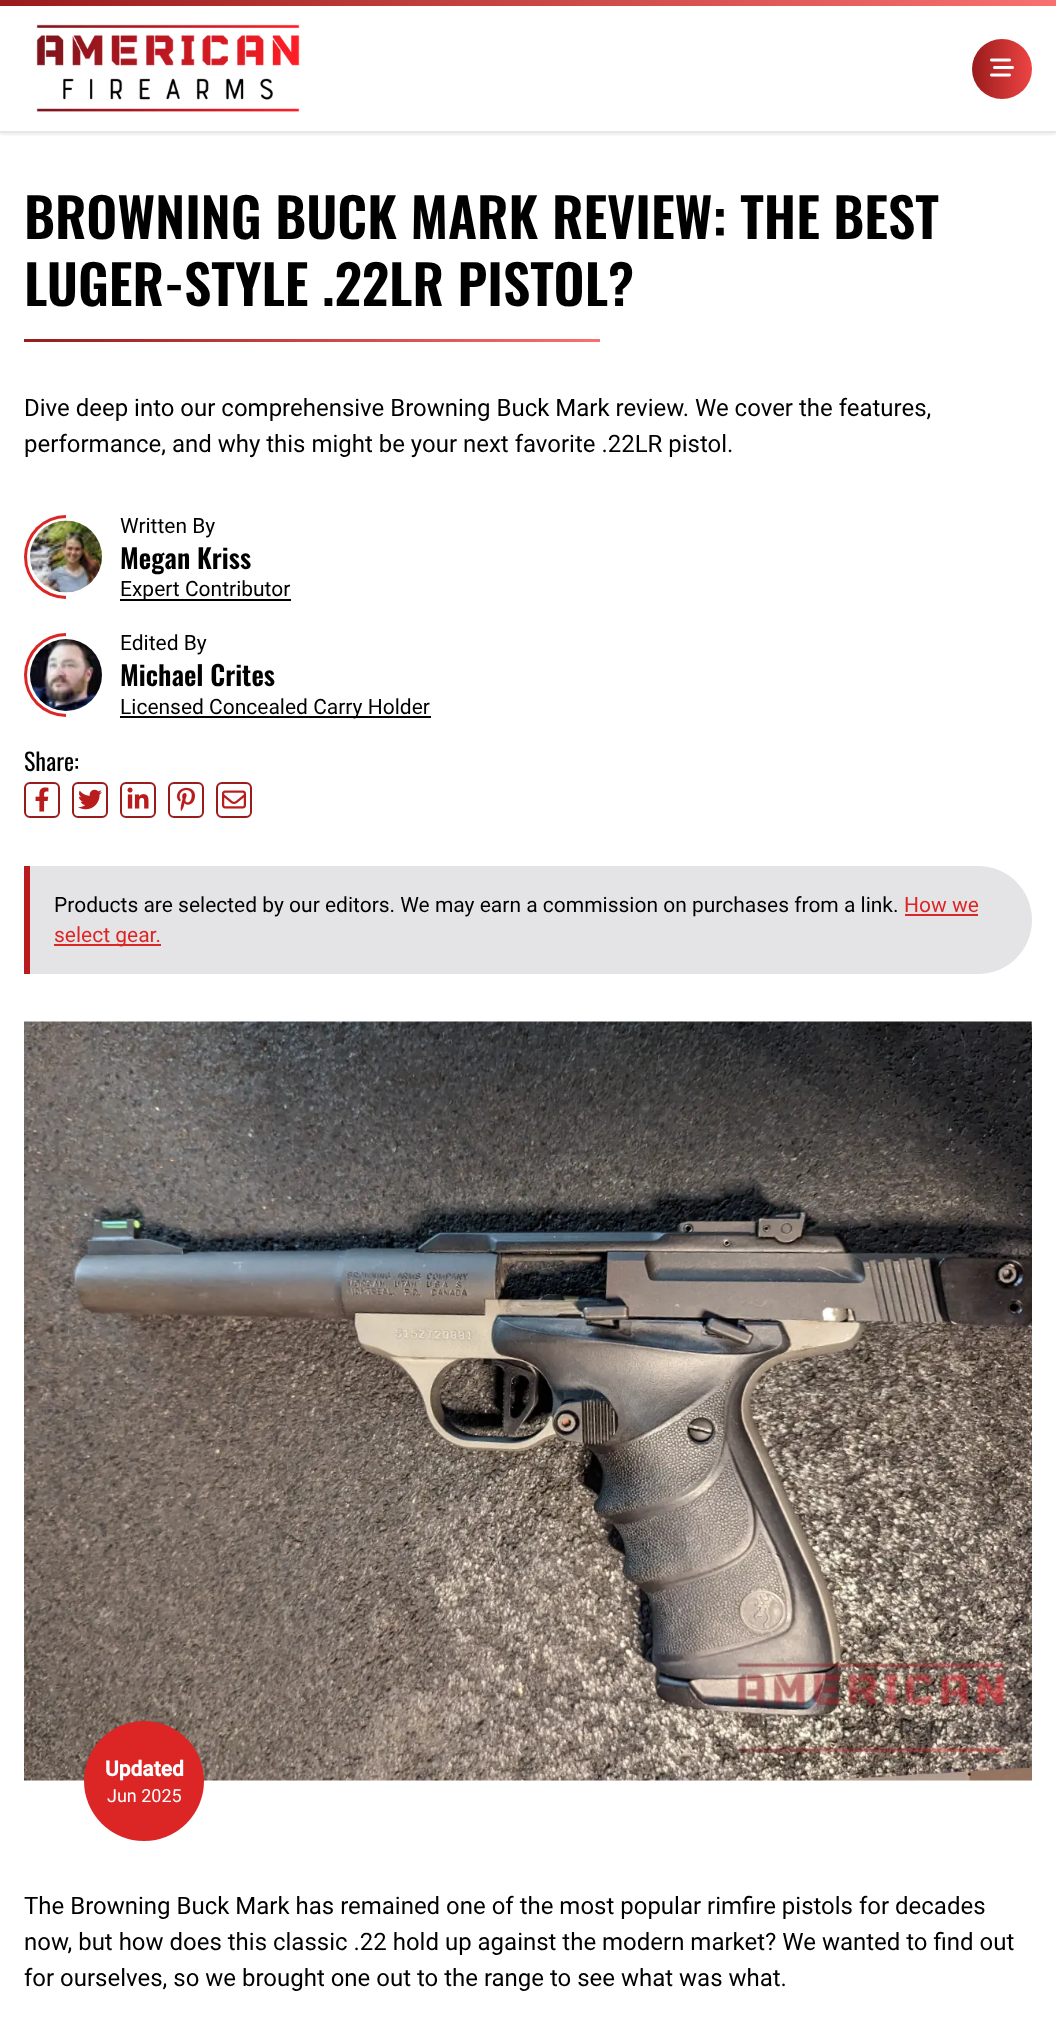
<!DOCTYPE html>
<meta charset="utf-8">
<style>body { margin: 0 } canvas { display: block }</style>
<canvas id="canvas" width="1056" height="2027"></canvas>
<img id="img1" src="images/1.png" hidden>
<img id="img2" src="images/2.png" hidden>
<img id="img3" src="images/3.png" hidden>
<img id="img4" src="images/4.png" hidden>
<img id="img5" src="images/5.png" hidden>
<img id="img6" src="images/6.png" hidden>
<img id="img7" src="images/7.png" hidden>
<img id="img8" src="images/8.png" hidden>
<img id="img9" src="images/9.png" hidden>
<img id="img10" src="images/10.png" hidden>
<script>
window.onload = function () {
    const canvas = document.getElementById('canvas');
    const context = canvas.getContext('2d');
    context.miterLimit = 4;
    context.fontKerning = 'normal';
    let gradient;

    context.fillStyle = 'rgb(255, 255, 255)';
    context.fillRect(0, 0, 1056, 2027);
    context.save();
    context.beginPath();
    context.rect(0, 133, 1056, 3);
    context.clip();
    context.fillStyle = 'rgba(0, 0, 0, 0.1)';
    context.filter = 'blur(2px)';
    context.beginPath();
    context.rect(0, 2, 1056, 132);
    context.fill();
    context.filter = 'none';
    context.restore();
    context.fillStyle = 'rgb(229, 231, 235)';
    context.fillRect(0, 131, 1056, 2);
    gradient = context.createLinearGradient(0, 3, 1056, 3);
    gradient.addColorStop(0, 'rgb(153, 27, 27)');
    gradient.addColorStop(1, 'rgb(248, 113, 113)');
    context.fillStyle = gradient;
    context.fillRect(0, 0, 1056, 6);
    context.drawImage(document.getElementById('img1'), 36, 24, 264, 88);
    gradient = context.createLinearGradient(972, 69, 1032, 69);
    gradient.addColorStop(0, 'rgb(153, 27, 27)');
    gradient.addColorStop(1, 'rgb(239, 68, 68)');
    context.fillStyle = gradient;
    context.beginPath();
    context.arc(1002, 69, 30, 0, 2 * Math.PI);
    context.fill();
    context.drawImage(document.getElementById('img2'), 990, 58, 24, 19);
    gradient = context.createLinearGradient(24, 341, 600, 341);
    gradient.addColorStop(0, 'rgb(153, 27, 27)');
    gradient.addColorStop(1, 'rgb(248, 113, 113)');
    context.fillStyle = gradient;
    context.fillRect(24, 339, 576, 3);
    context.fillStyle = 'rgb(220, 38, 38)';
    context.beginPath();
    context.roundRect(24, 515, 42, 84, [42, 0, 0, 42]);
    context.fill();
    context.fillStyle = 'rgb(255, 255, 255)';
    context.beginPath();
    context.arc(66, 557, 39, 0, 2 * Math.PI);
    context.fill();
    context.drawImage(document.getElementById('img3'), 30, 520, 72, 73);
    context.fillStyle = 'rgb(0, 0, 0)';
    context.fillRect(120, 599, 171, 2);
    context.fillStyle = 'rgb(220, 38, 38)';
    context.beginPath();
    context.roundRect(24, 633, 42, 84, [42, 0, 0, 42]);
    context.fill();
    context.fillStyle = 'rgb(255, 255, 255)';
    context.beginPath();
    context.arc(66, 675, 39, 0, 2 * Math.PI);
    context.fill();
    context.drawImage(document.getElementById('img4'), 30, 639, 72, 72);
    context.fillStyle = 'rgb(0, 0, 0)';
    context.fillRect(120, 716, 311, 2);
    context.beginPath();
    context.roundRect(25, 783, 34, 34, 5);
    context.strokeStyle = 'rgb(153, 27, 27)';
    context.lineWidth = 2;
    context.stroke();
    context.drawImage(document.getElementById('img5'), 35, 787, 14, 25);
    context.beginPath();
    context.roundRect(73, 783, 34, 34, 5);
    context.stroke();
    context.drawImage(document.getElementById('img6'), 78, 789, 24, 21);
    context.beginPath();
    context.roundRect(121, 783, 34, 34, 5);
    context.stroke();
    context.drawImage(document.getElementById('img7'), 127, 787, 22, 22);
    context.beginPath();
    context.roundRect(169, 783, 34, 34, 5);
    context.stroke();
    context.drawImage(document.getElementById('img8'), 177, 787, 18, 25);
    context.beginPath();
    context.roundRect(217, 783, 34, 34, 5);
    context.stroke();
    context.drawImage(document.getElementById('img9'), 222, 790, 24, 19);
    context.fillStyle = 'rgb(228, 228, 231)';
    context.beginPath();
    context.roundRect(30, 866, 1002, 108, [0, 54, 54, 0]);
    context.fill();
    context.fillStyle = 'rgb(185, 28, 28)';
    context.fillRect(24, 866, 6, 108);
    context.fillStyle = 'rgb(220, 38, 38)';
    context.fillRect(905, 914, 73, 2);
    context.fillRect(54, 944, 107, 2);
    context.drawImage(document.getElementById('img10'), 24, 1021, 1008, 760);
    context.beginPath();
    context.arc(144, 1781, 60, 0, 2 * Math.PI);
    context.fill();
    context.font = '600 54px Oswald';
    context.fillStyle = 'rgb(0, 0, 0)';
    context.fillText('BROWNING BUCK MARK REVIEW: THE BEST', 24, 239);
    context.fillText('LUGER-STYLE .22LR PISTOL?', 24, 306);
    context.font = '24px Roboto';
    context.fillText('Dive deep into our comprehensive Browning Buck Mark review. We cover the features,', 24, 416);
    context.fillText('performance, and why this might be your next favorite .22LR pistol.', 24, 452);
    context.font = '21px Roboto';
    context.fillText('Written By', 120, 533);
    context.font = '600 27px Oswald';
    context.fillText('Megan Kriss', 120, 569);
    context.font = '21px Roboto';
    context.fillText('Expert Contributor', 120, 596);
    context.fillText('Edited By', 120, 650);
    context.font = '600 27px Oswald';
    context.fillText('Michael Crites', 120, 686);
    context.font = '21px Roboto';
    context.fillText('Licensed Concealed Carry Holder', 120, 714);
    context.font = '24px Oswald';
    context.fillText('Share:', 24, 771);
    context.font = '21px Roboto';
    context.fillText('Products are selected by our editors. We may earn a commission on purchases from a link.', 54, 912);
    context.fillStyle = 'rgb(220, 38, 38)';
    context.fillText('How we', 904, 912);
    context.fillText('select gear.', 54, 942);
    context.font = 'bold 21px Roboto';
    context.fillStyle = 'rgb(255, 255, 255)';
    context.fillText('Updated', 105, 1776);
    context.font = '18px Roboto';
    context.fillText('Jun 2025', 107, 1802);
    context.font = '24px Roboto';
    context.fillStyle = 'rgb(0, 0, 0)';
    context.fillText('The Browning Buck Mark has remained one of the most popular rimfire pistols for decades', 24, 1914);
    context.fillText('now, but how does this classic .22 hold up against the modern market? We wanted to find out', 24, 1950);
    context.fillText('for ourselves, so we brought one out to the range to see what was what.', 24, 1986);
};
</script>
